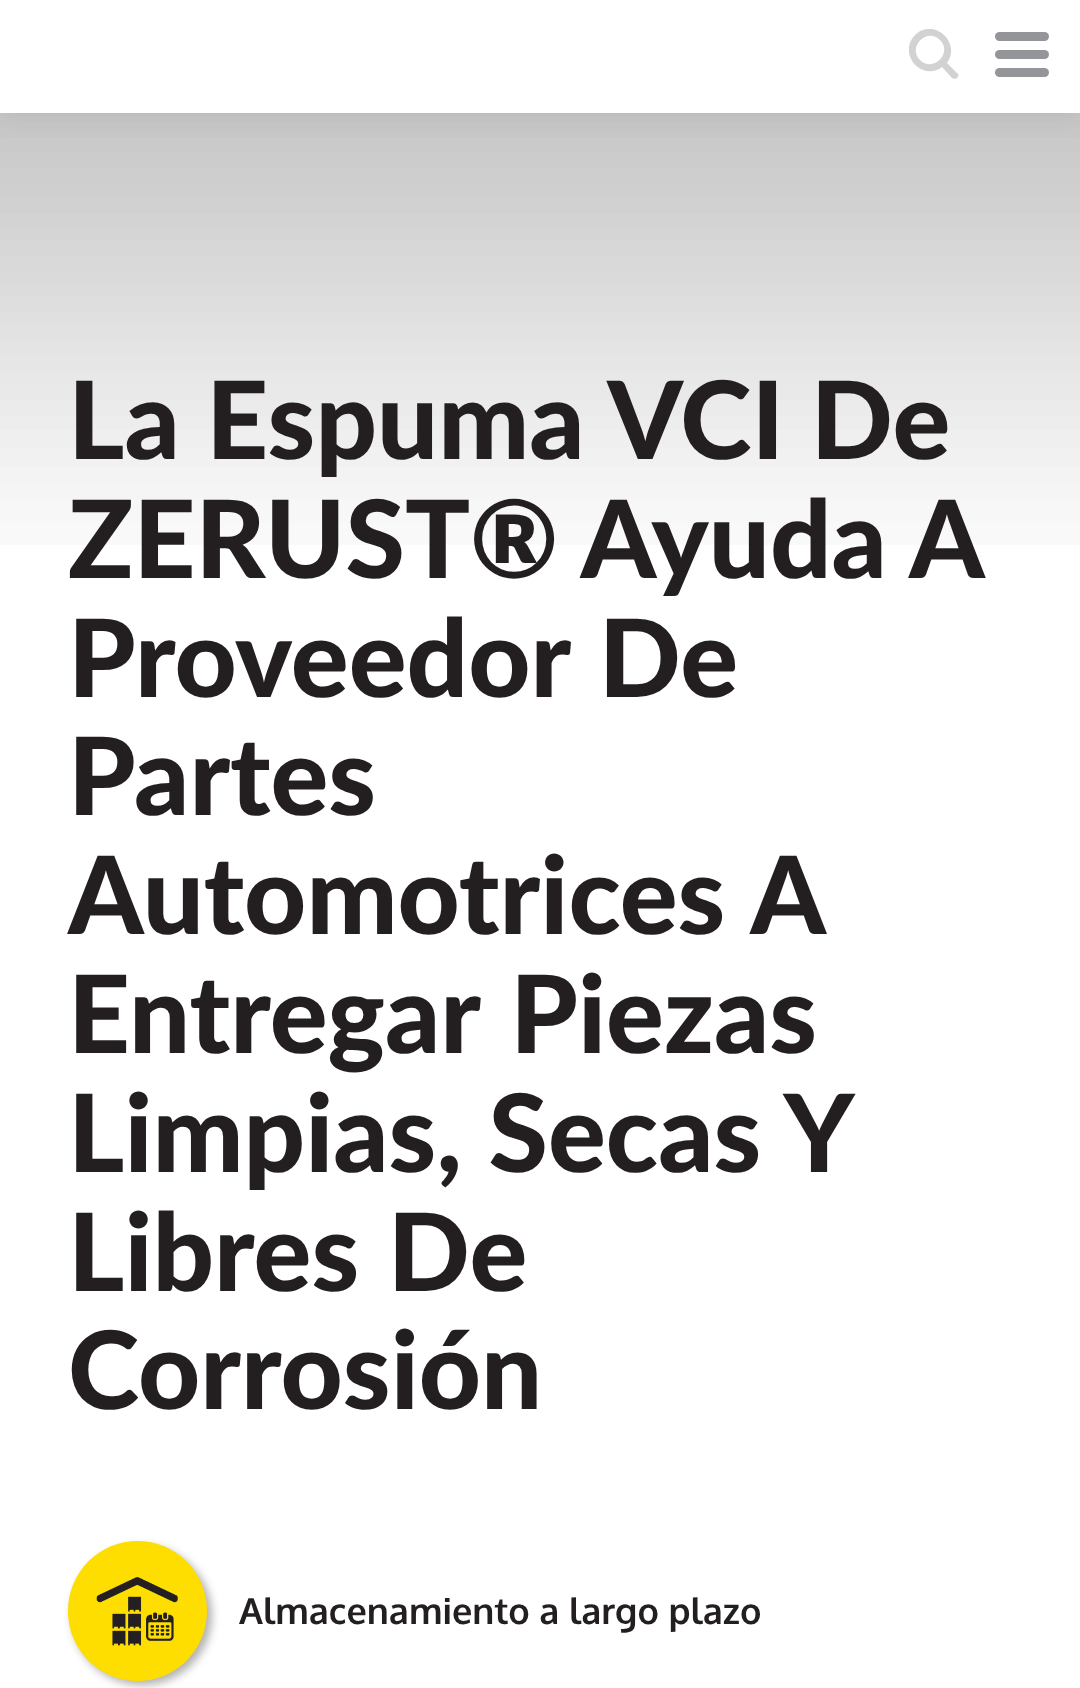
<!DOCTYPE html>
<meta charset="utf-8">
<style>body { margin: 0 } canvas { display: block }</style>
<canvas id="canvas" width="1080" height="1688"></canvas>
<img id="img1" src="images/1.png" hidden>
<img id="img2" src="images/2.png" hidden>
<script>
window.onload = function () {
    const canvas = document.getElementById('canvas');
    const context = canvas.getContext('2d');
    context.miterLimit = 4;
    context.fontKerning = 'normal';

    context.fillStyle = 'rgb(255, 255, 255)';
    context.fillRect(0, 0, 1080, 1688);
    context.drawImage(document.getElementById('img1'), 0, 113, 1080, 432);
    context.fillStyle = 'rgba(35, 31, 32, 0.1)';
    context.filter = 'blur(13.5px)';
    context.beginPath();
    context.rect(0, 0, 1080, 113);
    context.fill();
    context.filter = 'none';
    context.fillStyle = 'rgb(255, 255, 255)';
    context.fillRect(0, 0, 1080, 113);
    context.save();
    context.beginPath();
    context.rect(909, 29, 50, 50);
    context.clip();
    context.fillStyle = 'rgb(211, 210, 210)';
    context.beginPath();
    context.moveTo(957, 78);
    context.bezierCurveTo(956, 79, 954, 79, 952, 78);
    context.lineTo(942, 67);
    context.bezierCurveTo(922, 82, 897, 54, 915, 35);
    context.bezierCurveTo(933, 17, 962, 42, 947, 63);
    context.lineTo(957, 73);
    context.bezierCurveTo(959, 74, 959, 76, 957, 78);
    context.closePath();
    context.moveTo(940, 40);
    context.bezierCurveTo(927, 27, 907, 47, 920, 60);
    context.bezierCurveTo(933, 73, 953, 53, 940, 40);
    context.closePath();
    context.fill('evenodd');
    context.restore();
    context.fillStyle = 'rgb(147, 149, 152)';
    context.beginPath();
    context.roundRect(995, 32, 54, 9, 4.5);
    context.fill();
    context.beginPath();
    context.roundRect(995, 50, 54, 9, 4.5);
    context.fill();
    context.beginPath();
    context.roundRect(995, 68, 54, 9, 4.5);
    context.fill();
    context.fillStyle = 'rgba(0, 0, 0, 0.3)';
    context.filter = 'blur(4.5px)';
    context.beginPath();
    context.roundRect(72, 1546, 140, 139, 69.5);
    context.fill();
    context.filter = 'none';
    context.fillStyle = 'rgb(254, 221, 0)';
    context.beginPath();
    context.roundRect(68, 1541, 139, 140, 69.5);
    context.fill();
    context.drawImage(document.getElementById('img2'), 96, 1577, 82, 69);
    context.wordSpacing = '1px';
    context.font = '900 108px Lato';
    context.fillStyle = 'rgb(35, 31, 32)';
    context.fillText('La Espuma VCI De', 68, 459);
    context.wordSpacing = '0px';
    context.fillText('ZERUST® Ayuda A', 68, 578);
    context.wordSpacing = '4px';
    context.fillText('Proveedor De', 68, 697);
    context.wordSpacing = '0px';
    context.fillText('Partes', 68, 815);
    context.wordSpacing = '3px';
    context.fillText('Automotrices A', 68, 934);
    context.wordSpacing = '6px';
    context.fillText('Entregar Piezas', 68, 1053);
    context.wordSpacing = '1px';
    context.fillText('Limpias, Secas Y', 68, 1172);
    context.wordSpacing = '3px';
    context.fillText('Libres De', 68, 1291);
    context.wordSpacing = '0px';
    context.fillText('Corrosión', 68, 1409);
    context.font = 'bold 36px Oxygen';
    context.fillText('Almacenamiento a largo plazo', 239, 1624);
};
</script>
